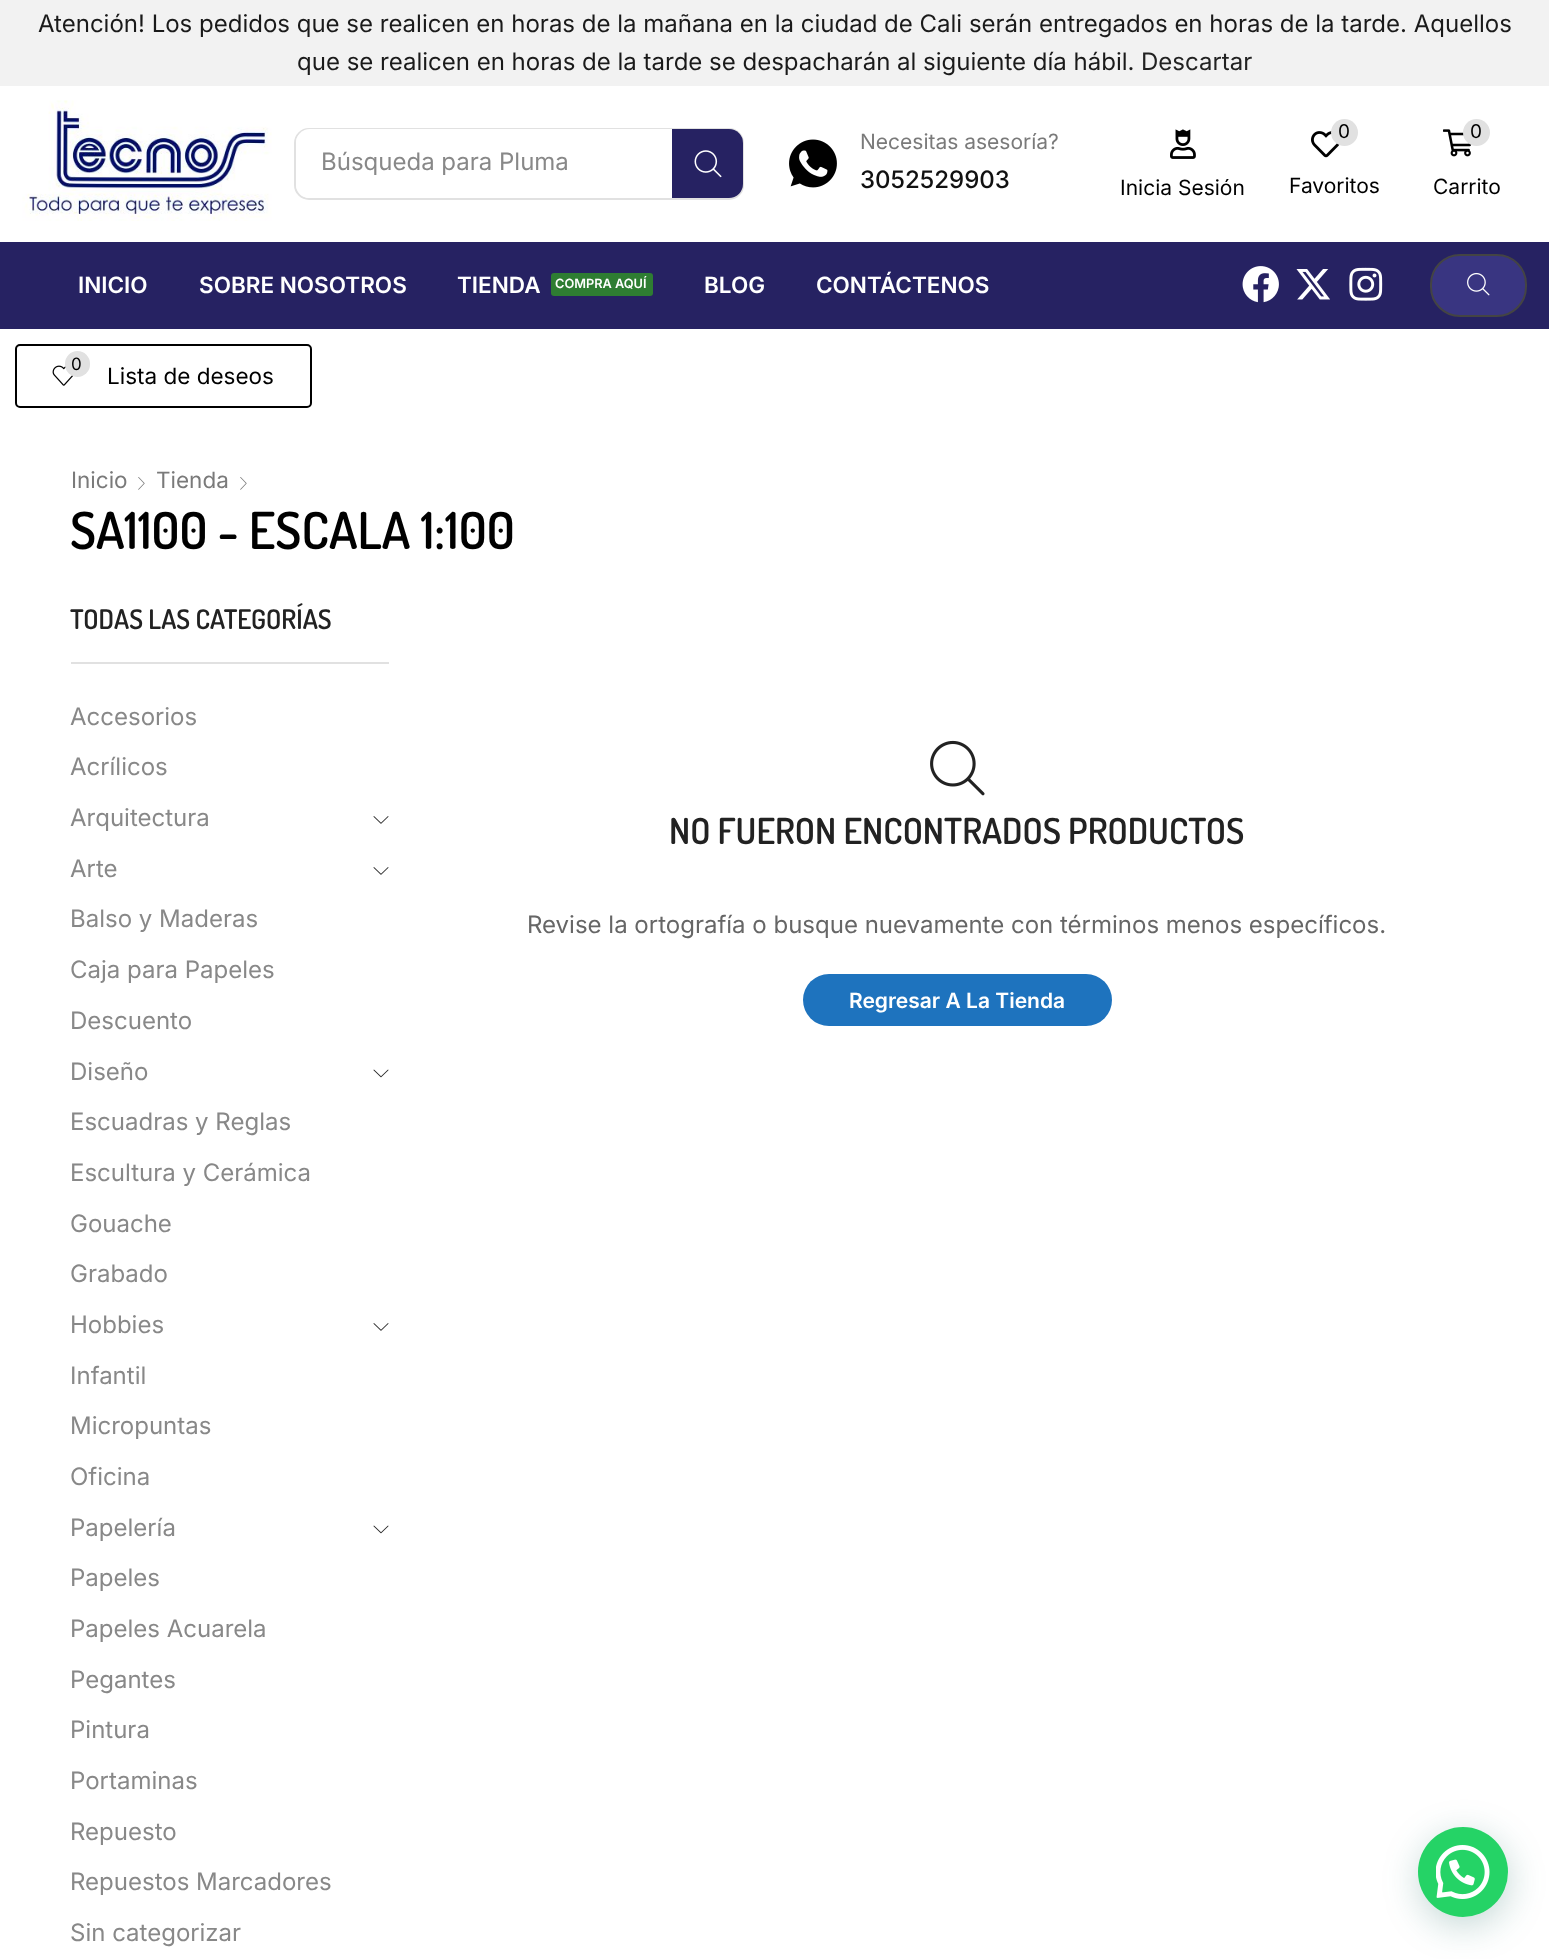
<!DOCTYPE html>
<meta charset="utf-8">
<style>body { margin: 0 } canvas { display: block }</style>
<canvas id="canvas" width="1549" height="1959"></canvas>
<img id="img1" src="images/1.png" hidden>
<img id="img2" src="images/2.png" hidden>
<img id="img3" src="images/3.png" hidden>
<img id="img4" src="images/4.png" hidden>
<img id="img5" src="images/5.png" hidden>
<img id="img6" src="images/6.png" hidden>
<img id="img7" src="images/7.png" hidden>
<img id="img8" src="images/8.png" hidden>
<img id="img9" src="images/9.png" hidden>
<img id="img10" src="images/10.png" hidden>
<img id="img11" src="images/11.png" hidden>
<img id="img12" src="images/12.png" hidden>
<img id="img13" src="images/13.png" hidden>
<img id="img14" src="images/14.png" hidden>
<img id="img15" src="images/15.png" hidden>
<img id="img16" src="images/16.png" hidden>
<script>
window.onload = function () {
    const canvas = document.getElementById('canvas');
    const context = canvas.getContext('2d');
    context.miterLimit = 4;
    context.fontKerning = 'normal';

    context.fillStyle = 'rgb(255, 255, 255)';
    context.fillRect(0, 0, 1549, 1959);
    context.fillStyle = 'rgb(242, 242, 242)';
    context.fillRect(0, 0, 1549, 86);
    context.drawImage(document.getElementById('img1'), 22, 100, 250, 121);
    context.beginPath();
    context.roundRect(295, 129, 448, 70, 14);
    context.strokeStyle = 'rgb(225, 225, 225)';
    context.lineWidth = 2;
    context.stroke();
    context.fillStyle = 'rgb(255, 255, 255)';
    context.beginPath();
    context.roundRect(296, 129, 376, 69, [14, 0, 0, 14]);
    context.fill();
    context.fillStyle = 'rgb(38, 34, 98)';
    context.beginPath();
    context.roundRect(672, 129, 71, 69, [0, 14, 14, 0]);
    context.fill();
    context.drawImage(document.getElementById('img2'), 694, 150, 28, 28);
    context.drawImage(document.getElementById('img3'), 789, 139, 48, 49);
    context.drawImage(document.getElementById('img4'), 1311, 131, 29, 27);
    context.fillStyle = 'rgb(225, 225, 225)';
    context.beginPath();
    context.arc(1344.5, 132.5, 13.5, 0, 2 * Math.PI);
    context.fill();
    context.drawImage(document.getElementById('img5'), 1443, 129, 29, 28);
    context.beginPath();
    context.arc(1476.5, 132.5, 13.5, 0, 2 * Math.PI);
    context.fill();
    context.drawImage(document.getElementById('img6'), 1170, 129, 26, 30);
    context.fillStyle = 'rgb(38, 34, 98)';
    context.fillRect(0, 242, 1549, 87);
    context.fillStyle = 'rgb(46, 125, 50)';
    context.beginPath();
    context.roundRect(551, 273, 102, 23, 3);
    context.fill();
    context.drawImage(document.getElementById('img7'), 1242, 266, 37, 37);
    context.drawImage(document.getElementById('img8'), 1296, 269, 34, 31);
    context.drawImage(document.getElementById('img9'), 1349, 267, 34, 34);
    context.fillStyle = 'rgb(57, 53, 129)';
    context.beginPath();
    context.roundRect(1431, 255, 95, 61, 29);
    context.fill();
    context.strokeStyle = 'rgb(68, 68, 68)';
    context.stroke();
    context.drawImage(document.getElementById('img10'), 1467, 272, 23, 24);
    context.beginPath();
    context.roundRect(16, 345, 295, 62, 4);
    context.strokeStyle = 'rgb(0, 0, 0)';
    context.stroke();
    context.drawImage(document.getElementById('img11'), 52, 365, 21, 21);
    context.fillStyle = 'rgb(225, 225, 225)';
    context.beginPath();
    context.roundRect(65, 351, 25, 26, 12.5);
    context.fill();
    context.drawImage(document.getElementById('img12'), 138, 477, 7, 13);
    context.drawImage(document.getElementById('img12'), 240, 477, 7, 13);
    context.fillRect(71, 662, 318, 2);
    context.drawImage(document.getElementById('img13'), 373, 816, 16, 8);
    context.drawImage(document.getElementById('img13'), 373, 867, 16, 8);
    context.drawImage(document.getElementById('img14'), 373, 1069, 16, 9);
    context.drawImage(document.getElementById('img13'), 373, 1323, 16, 8);
    context.drawImage(document.getElementById('img14'), 373, 1525, 16, 9);
    context.drawImage(document.getElementById('img15'), 930, 740, 55, 56);
    context.fillStyle = 'rgb(30, 115, 190)';
    context.beginPath();
    context.roundRect(803, 974, 309, 52, 26);
    context.fill();
    context.fillStyle = 'rgba(7, 94, 84, 0.24)';
    context.filter = 'blur(18px)';
    context.beginPath();
    context.roundRect(1419, 1836, 90, 90, 45);
    context.fill();
    context.filter = 'none';
    context.fillStyle = 'rgb(37, 211, 102)';
    context.beginPath();
    context.arc(1463, 1872, 45, 0, 2 * Math.PI);
    context.fill();
    context.drawImage(document.getElementById('img16'), 1436, 1845, 54, 54);
    context.font = '24px Inter';
    context.fillStyle = 'rgb(26, 26, 26)';
    context.fillText('Atención! Los pedidos que se realicen en horas de la mañana en la ciudad de Cali serán entregados en horas de la tarde. Aquellos', 38, 32);
    context.fillText('que se realicen en horas de la tarde se despacharán al siguiente día hábil.', 297, 70);
    context.fillStyle = 'rgb(34, 34, 34)';
    context.fillText('Descartar', 1141, 70);
    context.fillStyle = 'rgb(136, 136, 136)';
    context.fillText('Búsqueda para', 321, 170);
    context.fillText('Pluma', 499, 170);
    context.font = '21px Inter';
    context.fillStyle = 'rgb(122, 122, 122)';
    context.fillText('Necesitas asesoría?', 860, 149);
    context.font = '500 24px Inter';
    context.fillStyle = 'rgb(17, 17, 17)';
    context.fillText('3052529903', 860, 188);
    context.font = '19px Inter';
    context.fillStyle = 'rgb(0, 0, 0)';
    context.fillText('0', 1338, 138);
    context.font = '21px Inter';
    context.fillText('Favoritos', 1289, 193);
    context.font = '19px Inter';
    context.fillText('0', 1470, 138);
    context.font = '21px Inter';
    context.fillText('Carrito', 1433, 194);
    context.fillText('Inicia Sesión', 1120, 195);
    context.font = '600 22.5px Inter';
    context.fillStyle = 'rgb(255, 255, 255)';
    context.fillText('INICIO', 78, 293);
    context.fillText('SOBRE NOSOTROS', 199, 293);
    context.fillText('TIENDA', 457, 293);
    context.font = '600 12.75px Inter';
    context.fillText('COMPRA AQUÍ', 555, 288);
    context.font = '600 22.5px Inter';
    context.fillText('BLOG', 704, 293);
    context.fillText('CONTÁCTENOS', 816, 293);
    context.font = '17px Inter';
    context.fillStyle = 'rgb(0, 0, 0)';
    context.fillText('0', 71, 370);
    context.font = '22.5px Inter';
    context.fillText('Lista de deseos', 107, 384);
    context.fillStyle = 'rgb(122, 122, 122)';
    context.fillText('Inicio', 71, 488);
    context.fillText('Tienda', 156, 488);
    context.font = '600 51px Dosis';
    context.fillStyle = 'rgb(0, 0, 0)';
    context.fillText('SA1100 - ESCALA 1:100', 70, 549);
    context.font = '600 27px Dosis';
    context.fillStyle = 'rgb(34, 34, 34)';
    context.fillText('TODAS LAS CATEGORÍAS', 70, 629);
    context.font = '24px Inter';
    context.fillStyle = 'rgb(136, 136, 136)';
    context.fillText('Accesorios', 70, 725);
    context.fillText('Acrílicos', 70, 775);
    context.fillText('Arquitectura', 70, 826);
    context.fillText('Arte', 70, 877);
    context.fillText('Balso y Maderas', 70, 927);
    context.fillText('Caja para Papeles', 70, 978);
    context.fillText('Descuento', 70, 1029);
    context.fillText('Diseño', 70, 1080);
    context.fillText('Escuadras y Reglas', 70, 1130);
    context.fillText('Escultura y Cerámica', 70, 1181);
    context.fillText('Gouache', 70, 1232);
    context.fillText('Grabado', 70, 1282);
    context.fillText('Hobbies', 70, 1333);
    context.fillText('Infantil', 70, 1384);
    context.fillText('Micropuntas', 70, 1434);
    context.fillText('Oficina', 70, 1485);
    context.fillText('Papelería', 70, 1536);
    context.fillText('Papeles', 70, 1586);
    context.fillText('Papeles Acuarela', 70, 1637);
    context.fillText('Pegantes', 70, 1688);
    context.fillText('Pintura', 70, 1738);
    context.fillText('Portaminas', 70, 1789);
    context.fillText('Repuesto', 70, 1840);
    context.fillText('Repuestos Marcadores', 70, 1890);
    context.fillText('Sin categorizar', 70, 1941);
    context.font = '600 35.75px Dosis';
    context.fillStyle = 'rgb(34, 34, 34)';
    context.fillText('NO FUERON ENCONTRADOS PRODUCTOS', 669, 844);
    context.font = '24px Inter';
    context.fillStyle = 'rgb(102, 102, 102)';
    context.fillText('Revise la ortografía o busque nuevamente con términos menos específicos.', 527, 933);
    context.font = '600 21px Inter';
    context.fillStyle = 'rgb(255, 255, 255)';
    context.fillText('Regresar A La Tienda', 849, 1008);
};
</script>
